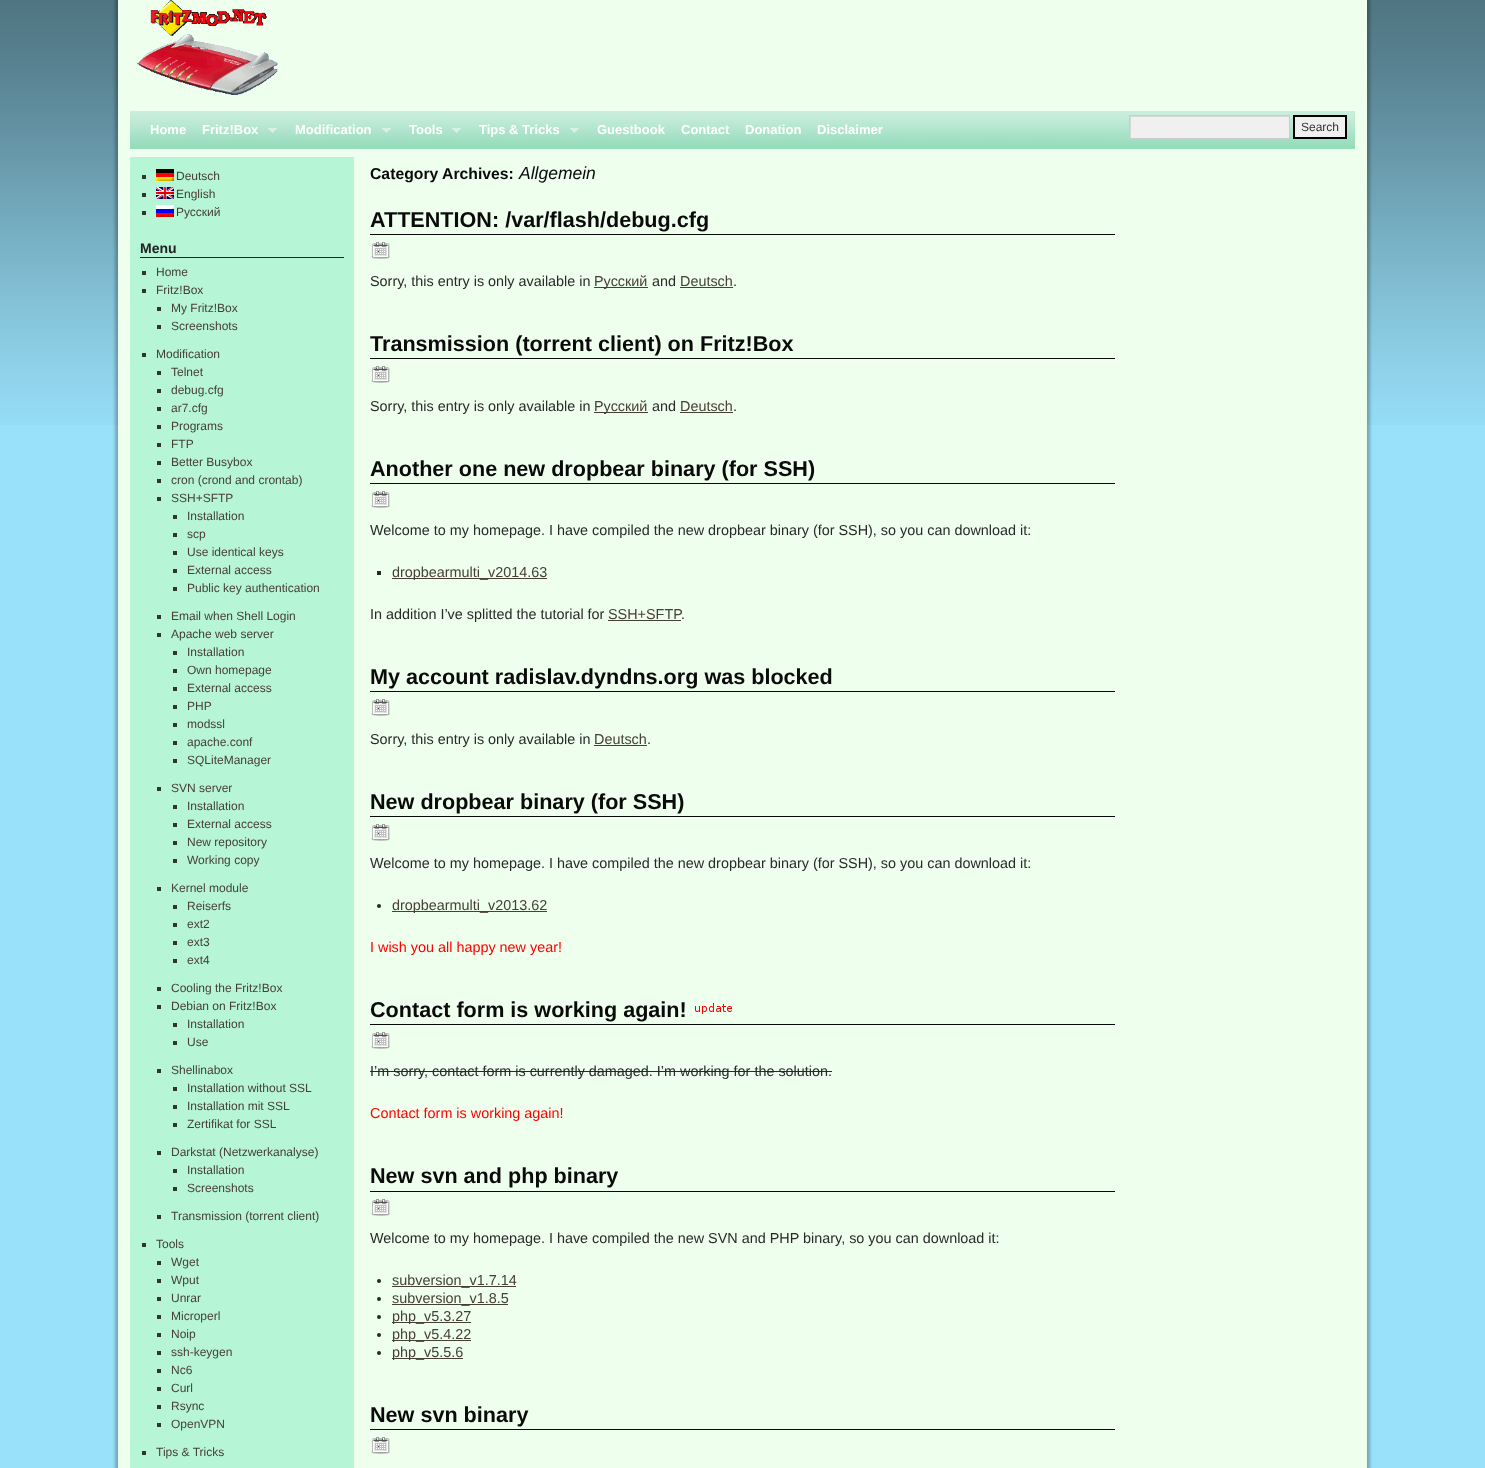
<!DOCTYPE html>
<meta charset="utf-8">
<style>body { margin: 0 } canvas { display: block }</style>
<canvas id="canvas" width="1485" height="1468"></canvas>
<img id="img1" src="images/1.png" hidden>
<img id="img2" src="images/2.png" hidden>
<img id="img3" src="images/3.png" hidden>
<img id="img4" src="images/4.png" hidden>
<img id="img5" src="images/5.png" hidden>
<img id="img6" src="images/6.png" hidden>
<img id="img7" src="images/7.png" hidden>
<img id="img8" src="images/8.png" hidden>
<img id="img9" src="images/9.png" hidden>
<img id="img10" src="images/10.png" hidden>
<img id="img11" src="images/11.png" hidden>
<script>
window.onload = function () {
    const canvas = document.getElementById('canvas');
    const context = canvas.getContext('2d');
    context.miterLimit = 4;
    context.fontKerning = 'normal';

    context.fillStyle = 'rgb(153, 225, 250)';
    context.fillRect(0, 0, 1485, 1468);
    context.drawImage(document.getElementById('img1'), 0, 0, 1485, 425);
    context.fillStyle = 'rgba(0, 0, 0, 0.25)';
    context.filter = 'blur(1.5px)';
    context.beginPath();
    context.rect(115, -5, 1255, 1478);
    context.fill();
    context.filter = 'none';
    context.fillStyle = 'rgb(238, 255, 238)';
    context.fillRect(118, 0, 1249, 1468);
    context.drawImage(document.getElementById('img2'), 136, 0, 142, 95);
    context.fillStyle = 'rgb(149, 220, 186)';
    context.fillRect(130, 111, 1225, 38);
    context.drawImage(document.getElementById('img3'), 130, 111, 1225, 35);
    context.drawImage(document.getElementById('img4'), 268, 128, 9, 5);
    context.drawImage(document.getElementById('img5'), 382, 128, 9, 5);
    context.drawImage(document.getElementById('img6'), 452, 128, 9, 5);
    context.drawImage(document.getElementById('img4'), 570, 128, 9, 5);
    context.fillStyle = 'rgb(240, 240, 240)';
    context.fillRect(1131, 117, 158, 21);
    context.save();
    context.beginPath();
    context.rect(1130, 116, 159, 22);
    context.clip();
    context.fillStyle = 'rgb(216, 216, 216)';
    context.beginPath();
    context.moveTo(1031, 17);
    context.lineTo(1388, 17);
    context.lineTo(1388, 237);
    context.lineTo(1031, 237);
    context.closePath();
    context.moveTo(1131, 117);
    context.lineTo(1290, 117);
    context.lineTo(1290, 139);
    context.lineTo(1131, 139);
    context.closePath();
    context.fill('evenodd');
    context.restore();
    context.strokeStyle = 'rgb(204, 204, 204)';
    context.strokeRect(1129.5, 115.5, 160, 23);
    context.beginPath();
    context.rect(1294, 116, 52, 22);
    context.fill();
    context.strokeStyle = 'rgb(0, 0, 0)';
    context.lineWidth = 2;
    context.stroke();
    context.fillStyle = 'rgb(183, 245, 215)';
    context.fillRect(130, 157, 224, 1311);
    context.fillStyle = 'rgb(51, 51, 51)';
    context.fillRect(142, 175, 4, 4);
    context.drawImage(document.getElementById('img7'), 156, 169, 18, 12);
    context.fillRect(142, 193, 4, 4);
    context.drawImage(document.getElementById('img8'), 156, 187, 18, 12);
    context.fillRect(142, 211, 4, 4);
    context.drawImage(document.getElementById('img9'), 156, 205, 18, 12);
    context.fillStyle = 'rgb(34, 34, 34)';
    context.fillRect(140, 257, 204, 1);
    context.fillStyle = 'rgb(51, 51, 51)';
    context.fillRect(142, 271, 4, 4);
    context.fillRect(142, 289, 4, 4);
    context.fillRect(157, 307, 4, 4);
    context.fillRect(157, 325, 4, 4);
    context.fillRect(142, 353, 4, 4);
    context.fillRect(157, 371, 4, 4);
    context.fillRect(157, 389, 4, 4);
    context.fillRect(157, 407, 4, 4);
    context.fillRect(157, 425, 4, 4);
    context.fillRect(157, 443, 4, 4);
    context.fillRect(157, 461, 4, 4);
    context.fillRect(157, 479, 4, 4);
    context.fillRect(157, 497, 4, 4);
    context.fillRect(173, 515, 4, 4);
    context.fillRect(173, 533, 4, 4);
    context.fillRect(173, 551, 4, 4);
    context.fillRect(173, 569, 4, 4);
    context.fillRect(173, 587, 4, 4);
    context.fillRect(157, 615, 4, 4);
    context.fillRect(157, 633, 4, 4);
    context.fillRect(173, 651, 4, 4);
    context.fillRect(173, 669, 4, 4);
    context.fillRect(173, 687, 4, 4);
    context.fillRect(173, 705, 4, 4);
    context.fillRect(173, 723, 4, 4);
    context.fillRect(173, 741, 4, 4);
    context.fillRect(173, 759, 4, 4);
    context.fillRect(157, 787, 4, 4);
    context.fillRect(173, 805, 4, 4);
    context.fillRect(173, 823, 4, 4);
    context.fillRect(173, 841, 4, 4);
    context.fillRect(173, 859, 4, 4);
    context.fillRect(157, 887, 4, 4);
    context.fillRect(173, 905, 4, 4);
    context.fillRect(173, 923, 4, 4);
    context.fillRect(173, 941, 4, 4);
    context.fillRect(173, 959, 4, 4);
    context.fillRect(157, 987, 4, 4);
    context.fillRect(157, 1005, 4, 4);
    context.fillRect(173, 1023, 4, 4);
    context.fillRect(173, 1041, 4, 4);
    context.fillRect(157, 1069, 4, 4);
    context.fillRect(173, 1087, 4, 4);
    context.fillRect(173, 1105, 4, 4);
    context.fillRect(173, 1123, 4, 4);
    context.fillRect(157, 1151, 4, 4);
    context.fillRect(173, 1169, 4, 4);
    context.fillRect(173, 1187, 4, 4);
    context.fillRect(157, 1215, 4, 4);
    context.fillRect(142, 1243, 4, 4);
    context.fillRect(157, 1261, 4, 4);
    context.fillRect(157, 1279, 4, 4);
    context.fillRect(157, 1297, 4, 4);
    context.fillRect(157, 1315, 4, 4);
    context.fillRect(157, 1333, 4, 4);
    context.fillRect(157, 1351, 4, 4);
    context.fillRect(157, 1369, 4, 4);
    context.fillRect(157, 1387, 4, 4);
    context.fillRect(157, 1405, 4, 4);
    context.fillRect(157, 1423, 4, 4);
    context.fillRect(142, 1451, 4, 4);
    context.fillStyle = 'rgb(10, 10, 10)';
    context.fillRect(370, 234, 745, 1);
    context.drawImage(document.getElementById('img10'), 371, 242, 19, 17);
    context.fillStyle = 'rgb(71, 65, 52)';
    context.fillRect(594, 287, 54, 1);
    context.fillRect(680, 287, 53, 1);
    context.fillStyle = 'rgb(10, 10, 10)';
    context.fillRect(370, 358, 745, 1);
    context.drawImage(document.getElementById('img10'), 371, 366, 19, 17);
    context.fillStyle = 'rgb(71, 65, 52)';
    context.fillRect(594, 412, 54, 1);
    context.fillRect(680, 412, 53, 1);
    context.fillStyle = 'rgb(10, 10, 10)';
    context.fillRect(370, 483, 745, 1);
    context.drawImage(document.getElementById('img10'), 371, 491, 19, 17);
    context.fillStyle = 'rgb(41, 41, 41)';
    context.fillRect(377, 571, 4, 4);
    context.fillStyle = 'rgb(71, 65, 52)';
    context.fillRect(392, 578, 155, 1);
    context.fillRect(608, 620, 73, 1);
    context.fillStyle = 'rgb(10, 10, 10)';
    context.fillRect(370, 691, 745, 1);
    context.drawImage(document.getElementById('img10'), 371, 699, 19, 17);
    context.fillStyle = 'rgb(71, 65, 52)';
    context.fillRect(594, 745, 53, 1);
    context.fillStyle = 'rgb(10, 10, 10)';
    context.fillRect(370, 816, 745, 1);
    context.drawImage(document.getElementById('img10'), 371, 824, 19, 17);
    context.fillStyle = 'rgb(41, 41, 41)';
    context.beginPath();
    context.arc(379, 906, 2, 0, 2 * Math.PI);
    context.fill();
    context.fillStyle = 'rgb(71, 65, 52)';
    context.fillRect(392, 911, 155, 1);
    context.fillStyle = 'rgb(10, 10, 10)';
    context.fillRect(370, 1024, 745, 1);
    context.drawImage(document.getElementById('img11'), 695, 1003, 37, 11);
    context.drawImage(document.getElementById('img10'), 371, 1032, 19, 17);
    context.fillStyle = 'rgb(41, 41, 41)';
    context.fillRect(370, 1071, 462, 1);
    context.fillStyle = 'rgb(10, 10, 10)';
    context.fillRect(370, 1191, 745, 1);
    context.drawImage(document.getElementById('img10'), 371, 1199, 19, 17);
    context.fillStyle = 'rgb(41, 41, 41)';
    context.beginPath();
    context.arc(379, 1281, 2, 0, 2 * Math.PI);
    context.fill();
    context.fillStyle = 'rgb(71, 65, 52)';
    context.fillRect(392, 1286, 124, 1);
    context.fillStyle = 'rgb(41, 41, 41)';
    context.beginPath();
    context.arc(379, 1299, 2, 0, 2 * Math.PI);
    context.fill();
    context.fillStyle = 'rgb(71, 65, 52)';
    context.fillRect(392, 1304, 116, 1);
    context.fillStyle = 'rgb(41, 41, 41)';
    context.beginPath();
    context.arc(379, 1317, 2, 0, 2 * Math.PI);
    context.fill();
    context.fillStyle = 'rgb(71, 65, 52)';
    context.fillRect(392, 1322, 79, 1);
    context.fillStyle = 'rgb(41, 41, 41)';
    context.beginPath();
    context.arc(379, 1335, 2, 0, 2 * Math.PI);
    context.fill();
    context.fillStyle = 'rgb(71, 65, 52)';
    context.fillRect(392, 1340, 79, 1);
    context.fillStyle = 'rgb(41, 41, 41)';
    context.beginPath();
    context.arc(379, 1353, 2, 0, 2 * Math.PI);
    context.fill();
    context.fillStyle = 'rgb(71, 65, 52)';
    context.fillRect(392, 1358, 71, 1);
    context.fillStyle = 'rgb(10, 10, 10)';
    context.fillRect(370, 1429, 745, 1);
    context.drawImage(document.getElementById('img10'), 371, 1437, 19, 17);
    context.font = 'bold 13px Liberation Sans';
    context.fillStyle = 'rgb(255, 255, 255)';
    context.fillText('Home', 150, 134);
    context.fillText('Fritz!Box', 202, 134);
    context.fillText('Modification', 295, 134);
    context.fillText('Tools', 409, 134);
    context.fillText('Tips & Tricks', 479, 134);
    context.fillText('Guestbook', 597, 134);
    context.fillText('Contact', 681, 134);
    context.fillText('Donation', 745, 134);
    context.fillText('Disclaimer', 817, 134);
    context.font = '12px Liberation Sans';
    context.fillStyle = 'rgb(51, 51, 51)';
    context.fillText('Search', 1301, 131);
    context.fillStyle = 'rgb(71, 65, 52)';
    context.fillText('Deutsch', 176, 180);
    context.fillText('English', 176, 198);
    context.fillText('Русский', 176, 216);
    context.font = 'bold 14px Liberation Sans';
    context.fillStyle = 'rgb(34, 34, 34)';
    context.fillText('Menu', 140, 253);
    context.font = '12px Liberation Sans';
    context.fillStyle = 'rgb(71, 65, 52)';
    context.fillText('Home', 156, 276);
    context.fillText('Fritz!Box', 156, 294);
    context.fillText('My Fritz!Box', 171, 312);
    context.fillText('Screenshots', 171, 330);
    context.fillText('Modification', 156, 358);
    context.fillText('Telnet', 171, 376);
    context.fillText('debug.cfg', 171, 394);
    context.fillText('ar7.cfg', 171, 412);
    context.fillText('Programs', 171, 430);
    context.fillText('FTP', 171, 448);
    context.fillText('Better Busybox', 171, 466);
    context.fillText('cron (crond and crontab)', 171, 484);
    context.fillText('SSH+SFTP', 171, 502);
    context.fillText('Installation', 187, 520);
    context.fillText('scp', 187, 538);
    context.fillText('Use identical keys', 187, 556);
    context.fillText('External access', 187, 574);
    context.fillText('Public key authentication', 187, 592);
    context.fillText('Email when Shell Login', 171, 620);
    context.fillText('Apache web server', 171, 638);
    context.fillText('Installation', 187, 656);
    context.fillText('Own homepage', 187, 674);
    context.fillText('External access', 187, 692);
    context.fillText('PHP', 187, 710);
    context.fillText('modssl', 187, 728);
    context.fillText('apache.conf', 187, 746);
    context.fillText('SQLiteManager', 187, 764);
    context.fillText('SVN server', 171, 792);
    context.fillText('Installation', 187, 810);
    context.fillText('External access', 187, 828);
    context.fillText('New repository', 187, 846);
    context.fillText('Working copy', 187, 864);
    context.fillText('Kernel module', 171, 892);
    context.fillText('Reiserfs', 187, 910);
    context.fillText('ext2', 187, 928);
    context.fillText('ext3', 187, 946);
    context.fillText('ext4', 187, 964);
    context.fillText('Cooling the Fritz!Box', 171, 992);
    context.fillText('Debian on Fritz!Box', 171, 1010);
    context.fillText('Installation', 187, 1028);
    context.fillText('Use', 187, 1046);
    context.fillText('Shellinabox', 171, 1074);
    context.fillText('Installation without SSL', 187, 1092);
    context.fillText('Installation mit SSL', 187, 1110);
    context.fillText('Zertifikat for SSL', 187, 1128);
    context.fillText('Darkstat (Netzwerkanalyse)', 171, 1156);
    context.fillText('Installation', 187, 1174);
    context.fillText('Screenshots', 187, 1192);
    context.fillText('Transmission (torrent client)', 171, 1220);
    context.fillText('Tools', 156, 1248);
    context.fillText('Wget', 171, 1266);
    context.fillText('Wput', 171, 1284);
    context.fillText('Unrar', 171, 1302);
    context.fillText('Microperl', 171, 1320);
    context.fillText('Noip', 171, 1338);
    context.fillText('ssh-keygen', 171, 1356);
    context.fillText('Nc6', 171, 1374);
    context.fillText('Curl', 171, 1392);
    context.fillText('Rsync', 171, 1410);
    context.fillText('OpenVPN', 171, 1428);
    context.fillText('Tips & Tricks', 156, 1456);
    context.font = 'bold 15.75px Liberation Sans';
    context.fillStyle = 'rgb(10, 10, 10)';
    context.fillText('Category Archives:', 370, 179);
    context.font = 'italic 17.5px Liberation Sans';
    context.fillText('Allgemein', 519, 179);
    context.font = 'bold 21.6px Liberation Sans';
    context.fillText('ATTENTION: /var/flash/debug.cfg', 370, 227);
    context.font = '14.4px Liberation Sans';
    context.fillStyle = 'rgb(41, 41, 41)';
    context.fillText('Sorry, this entry is only available in', 370, 286);
    context.fillStyle = 'rgb(71, 65, 52)';
    context.fillText('Русский', 594, 286);
    context.fillStyle = 'rgb(41, 41, 41)';
    context.fillText('and', 652, 286);
    context.fillStyle = 'rgb(71, 65, 52)';
    context.fillText('Deutsch', 680, 286);
    context.fillStyle = 'rgb(41, 41, 41)';
    context.fillText('.', 733, 286);
    context.font = 'bold 21.6px Liberation Sans';
    context.fillStyle = 'rgb(10, 10, 10)';
    context.fillText('Transmission (torrent client) on Fritz!Box', 370, 351);
    context.font = '14.4px Liberation Sans';
    context.fillStyle = 'rgb(41, 41, 41)';
    context.fillText('Sorry, this entry is only available in', 370, 411);
    context.fillStyle = 'rgb(71, 65, 52)';
    context.fillText('Русский', 594, 411);
    context.fillStyle = 'rgb(41, 41, 41)';
    context.fillText('and', 652, 411);
    context.fillStyle = 'rgb(71, 65, 52)';
    context.fillText('Deutsch', 680, 411);
    context.fillStyle = 'rgb(41, 41, 41)';
    context.fillText('.', 733, 411);
    context.font = 'bold 21.6px Liberation Sans';
    context.fillStyle = 'rgb(10, 10, 10)';
    context.fillText('Another one new dropbear binary (for SSH)', 370, 476);
    context.font = '14.4px Liberation Sans';
    context.fillStyle = 'rgb(41, 41, 41)';
    context.fillText('Welcome to my homepage. I have compiled the new dropbear binary (for SSH), so you can download it:', 370, 535);
    context.fillStyle = 'rgb(71, 65, 52)';
    context.fillText('dropbearmulti_v2014.63', 392, 577);
    context.fillStyle = 'rgb(41, 41, 41)';
    context.fillText('In addition I’ve splitted the tutorial for', 370, 619);
    context.fillStyle = 'rgb(71, 65, 52)';
    context.fillText('SSH+SFTP', 608, 619);
    context.fillStyle = 'rgb(41, 41, 41)';
    context.fillText('.', 681, 619);
    context.font = 'bold 21.6px Liberation Sans';
    context.fillStyle = 'rgb(10, 10, 10)';
    context.fillText('My account radislav.dyndns.org was blocked', 370, 684);
    context.font = '14.4px Liberation Sans';
    context.fillStyle = 'rgb(41, 41, 41)';
    context.fillText('Sorry, this entry is only available in', 370, 744);
    context.fillStyle = 'rgb(71, 65, 52)';
    context.fillText('Deutsch', 594, 744);
    context.fillStyle = 'rgb(41, 41, 41)';
    context.fillText('.', 647, 744);
    context.font = 'bold 21.6px Liberation Sans';
    context.fillStyle = 'rgb(10, 10, 10)';
    context.fillText('New dropbear binary (for SSH)', 370, 809);
    context.font = '14.4px Liberation Sans';
    context.fillStyle = 'rgb(41, 41, 41)';
    context.fillText('Welcome to my homepage. I have compiled the new dropbear binary (for SSH), so you can download it:', 370, 868);
    context.fillStyle = 'rgb(71, 65, 52)';
    context.fillText('dropbearmulti_v2013.62', 392, 910);
    context.fillStyle = 'rgb(255, 0, 0)';
    context.fillText('I wish you all happy new year!', 370, 952);
    context.font = 'bold 21.6px Liberation Sans';
    context.fillStyle = 'rgb(10, 10, 10)';
    context.fillText('Contact form is working again!', 370, 1017);
    context.font = '14.4px Liberation Sans';
    context.fillStyle = 'rgb(41, 41, 41)';
    context.fillText('I’m sorry, contact form is currently damaged. I’m working for the solution.', 370, 1076);
    context.fillStyle = 'rgb(255, 0, 0)';
    context.fillText('Contact form is working again!', 370, 1118);
    context.font = 'bold 21.6px Liberation Sans';
    context.fillStyle = 'rgb(10, 10, 10)';
    context.fillText('New svn and php binary', 370, 1183);
    context.font = '14.4px Liberation Sans';
    context.fillStyle = 'rgb(41, 41, 41)';
    context.fillText('Welcome to my homepage. I have compiled the new SVN and PHP binary, so you can download it:', 370, 1243);
    context.fillStyle = 'rgb(71, 65, 52)';
    context.fillText('subversion_v1.7.14', 392, 1285);
    context.fillText('subversion_v1.8.5', 392, 1303);
    context.fillText('php_v5.3.27', 392, 1321);
    context.fillText('php_v5.4.22', 392, 1339);
    context.fillText('php_v5.5.6', 392, 1357);
    context.font = 'bold 21.6px Liberation Sans';
    context.fillStyle = 'rgb(10, 10, 10)';
    context.fillText('New svn binary', 370, 1422);
};
</script>
